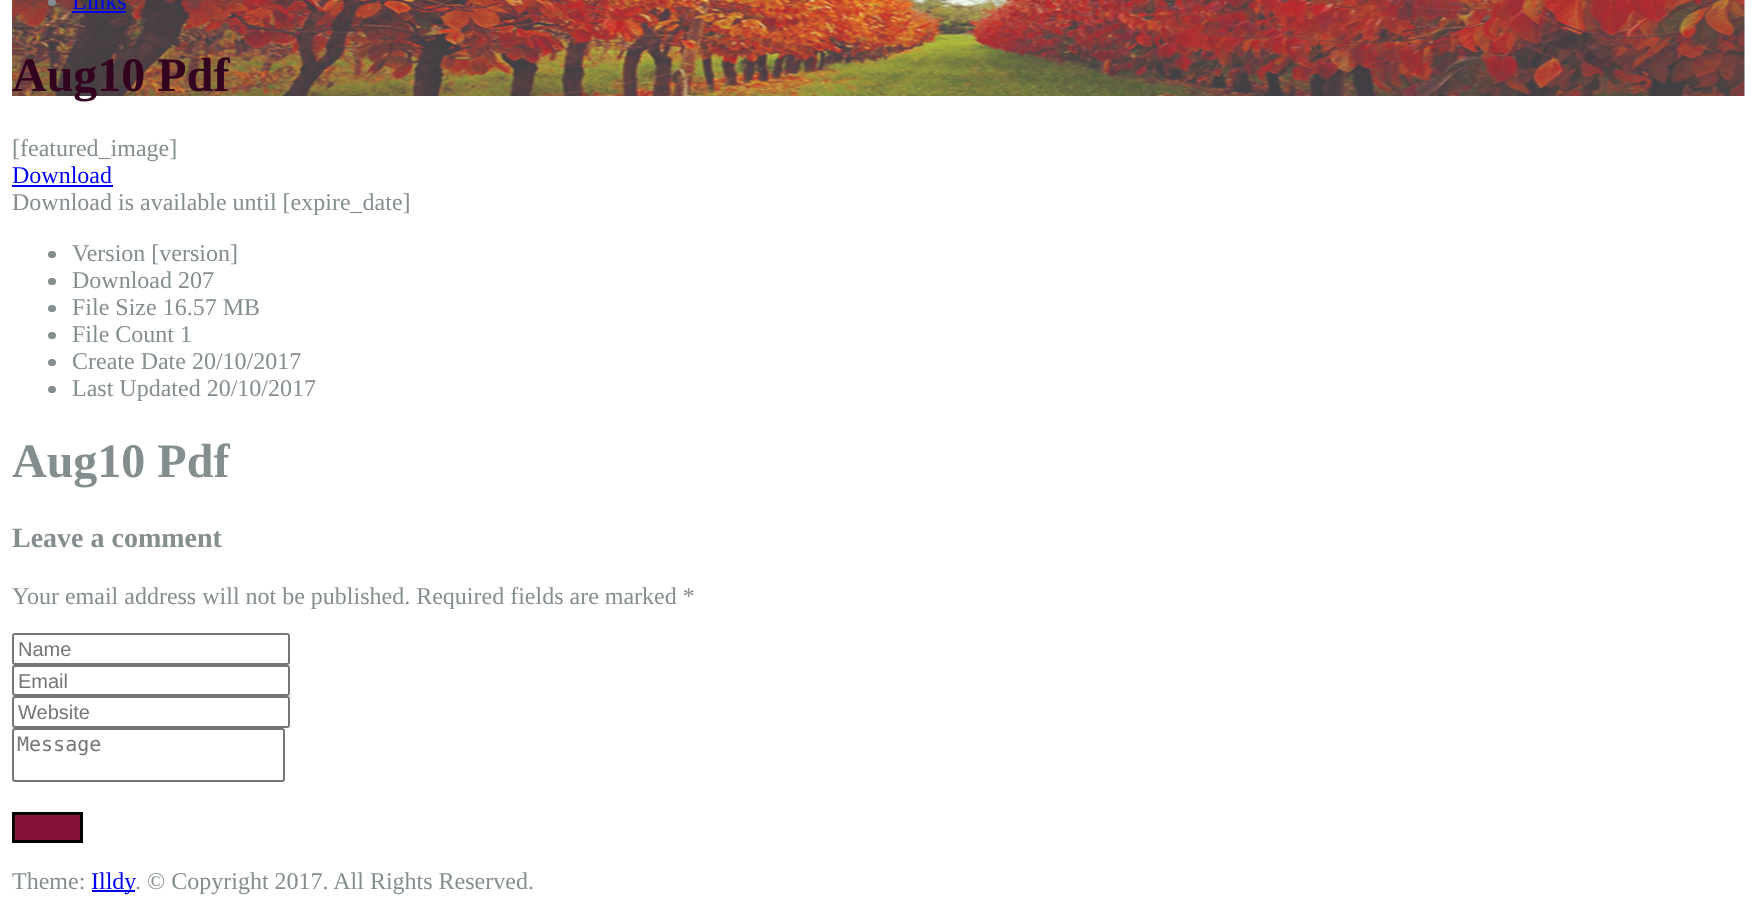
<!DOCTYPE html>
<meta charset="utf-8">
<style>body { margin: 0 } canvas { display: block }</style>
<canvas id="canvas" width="1756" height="911"></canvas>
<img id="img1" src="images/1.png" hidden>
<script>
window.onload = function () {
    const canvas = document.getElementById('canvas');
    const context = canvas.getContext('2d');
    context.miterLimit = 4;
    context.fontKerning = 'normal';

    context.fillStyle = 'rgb(255, 255, 255)';
    context.fillRect(0, 0, 1756, 911);
    context.drawImage(document.getElementById('img1'), 12, 0, 1733, 96);
    context.fillStyle = 'rgb(133, 142, 143)';
    context.beginPath();
    context.roundRect(48, -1, 8, 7, 3.5);
    context.fill();
    context.fillStyle = 'rgb(0, 0, 238)';
    context.fillRect(72, 11, 54, 2);
    context.fillRect(12, 185, 101, 2);
    context.fillStyle = 'rgb(133, 142, 143)';
    context.beginPath();
    context.roundRect(48, 251, 8, 7, 3.5);
    context.fill();
    context.beginPath();
    context.roundRect(48, 278, 8, 7, 3.5);
    context.fill();
    context.beginPath();
    context.roundRect(48, 305, 8, 7, 3.5);
    context.fill();
    context.beginPath();
    context.roundRect(48, 332, 8, 7, 3.5);
    context.fill();
    context.beginPath();
    context.roundRect(48, 359, 8, 7, 3.5);
    context.fill();
    context.beginPath();
    context.roundRect(48, 386, 8, 7, 3.5);
    context.fill();
    context.beginPath();
    context.roundRect(13, 634, 276, 30, 2);
    context.strokeStyle = 'rgb(118, 118, 118)';
    context.lineWidth = 2;
    context.stroke();
    context.beginPath();
    context.roundRect(13, 666, 276, 29, 2);
    context.stroke();
    context.beginPath();
    context.roundRect(13, 697, 276, 30, 2);
    context.stroke();
    context.beginPath();
    context.roundRect(13, 729, 271, 52, 2);
    context.stroke();
    context.fillStyle = 'rgb(133, 19, 55)';
    context.beginPath();
    context.rect(13.5, 813.5, 68, 28);
    context.fill();
    context.strokeStyle = 'rgb(0, 0, 0)';
    context.lineWidth = 3;
    context.stroke();
    context.fillStyle = 'rgb(0, 0, 238)';
    context.fillRect(92, 890, 43, 2);
    context.font = '24px Liberation Serif';
    context.fillText('Links', 72, 9);
    context.font = 'bold 48px Liberation Serif';
    context.fillStyle = 'rgb(51, 2, 31)';
    context.fillText('Aug10 Pdf', 12, 91);
    context.font = '24px Liberation Serif';
    context.fillStyle = 'rgb(133, 142, 143)';
    context.fillText('[featured_image]', 12, 156);
    context.fillStyle = 'rgb(0, 0, 238)';
    context.fillText('Download', 12, 183);
    context.fillStyle = 'rgb(133, 142, 143)';
    context.fillText('Download is available until [expire_date]', 12, 210);
    context.fillText('Version [version]', 72, 261);
    context.fillText('Download 207', 72, 288);
    context.fillText('File Size 16.57 MB', 72, 315);
    context.fillText('File Count 1', 72, 342);
    context.fillText('Create Date 20/10/2017', 72, 369);
    context.fillText('Last Updated 20/10/2017', 72, 396);
    context.font = 'bold 48px Liberation Serif';
    context.fillText('Aug10 Pdf', 12, 477);
    context.font = 'bold 28px Liberation Serif';
    context.fillText('Leave a comment', 12, 547);
    context.font = '24px Liberation Serif';
    context.fillText('Your email address will not be published. Required fields are marked *', 12, 604);
    context.font = '20px Liberation Sans';
    context.fillStyle = 'rgb(117, 117, 117)';
    context.fillText('Name', 18, 656);
    context.fillText('Email', 18, 688);
    context.fillText('Website', 18, 719);
    context.font = '20px DejaVu Sans Mono';
    context.fillText('Message', 17, 751);
    context.font = '24px Liberation Serif';
    context.fillStyle = 'rgb(133, 142, 143)';
    context.fillText('Theme:', 12, 889);
    context.fillStyle = 'rgb(0, 0, 238)';
    context.fillText('Illdy', 91, 889);
    context.fillStyle = 'rgb(133, 142, 143)';
    context.fillText('. © Copyright 2017. All Rights Reserved.', 135, 889);
};
</script>
